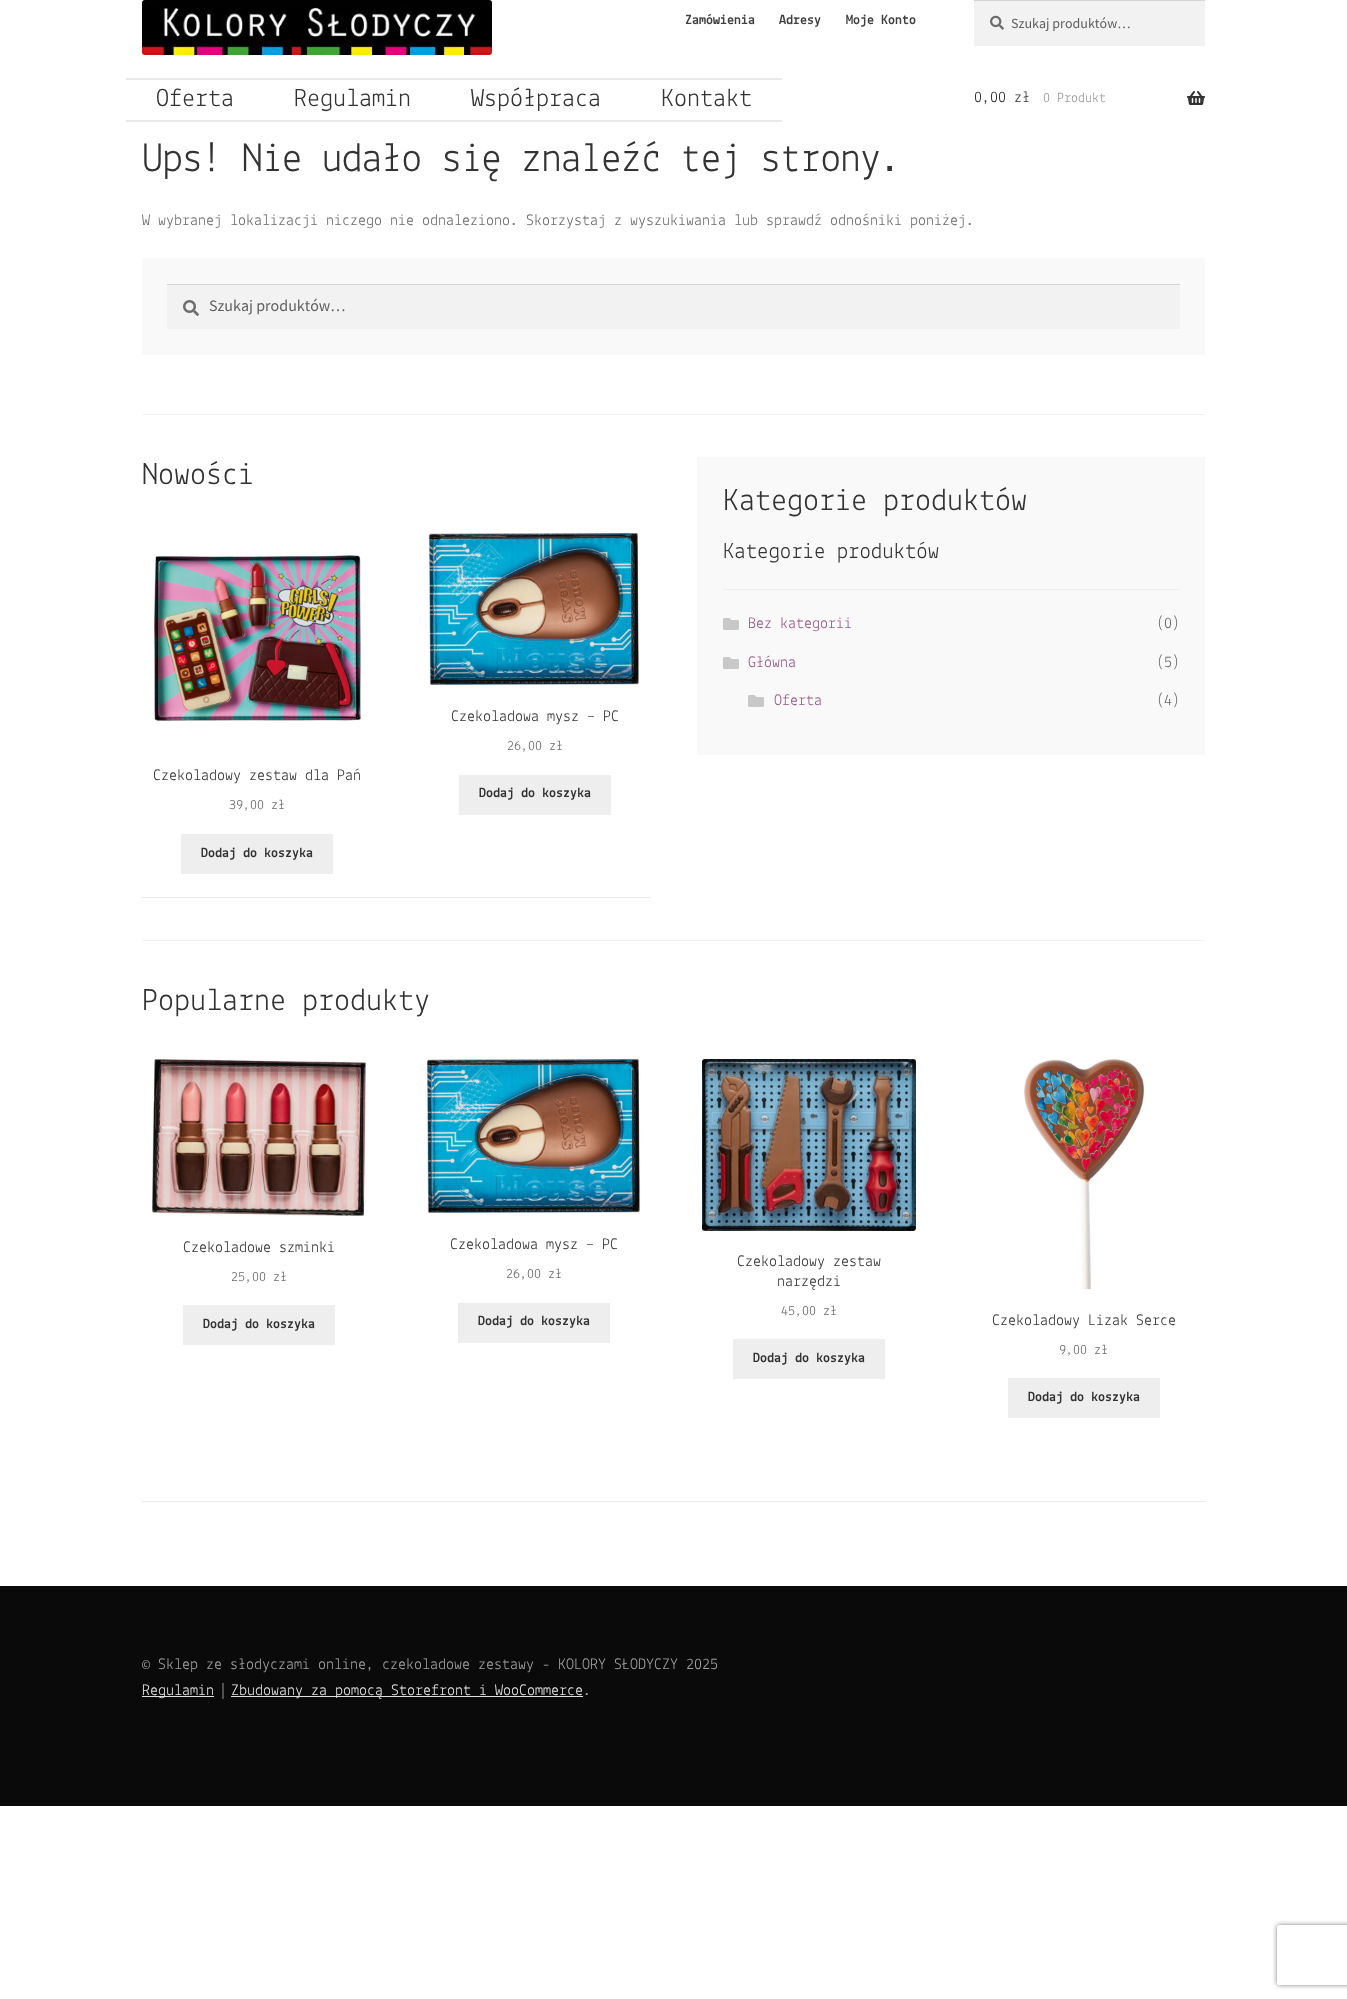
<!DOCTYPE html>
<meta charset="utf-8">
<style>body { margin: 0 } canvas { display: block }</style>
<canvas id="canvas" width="1347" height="1999"></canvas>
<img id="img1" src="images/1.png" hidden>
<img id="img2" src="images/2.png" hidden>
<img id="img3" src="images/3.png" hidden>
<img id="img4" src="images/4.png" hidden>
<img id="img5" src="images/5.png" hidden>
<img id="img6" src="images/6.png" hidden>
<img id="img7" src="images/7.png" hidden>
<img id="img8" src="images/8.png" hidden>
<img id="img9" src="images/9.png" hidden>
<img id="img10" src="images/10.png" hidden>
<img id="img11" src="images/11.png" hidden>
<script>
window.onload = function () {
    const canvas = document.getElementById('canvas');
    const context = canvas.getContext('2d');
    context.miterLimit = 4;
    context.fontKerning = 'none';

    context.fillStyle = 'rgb(255, 255, 255)';
    context.fillRect(0, 0, 1347, 1999);
    context.drawImage(document.getElementById('img1'), 142, 0, 350, 55);
    context.fillStyle = 'rgb(242, 242, 242)';
    context.fillRect(974, 1, 231, 45);
    context.drawImage(document.getElementById('img2'), 990, 15, 14, 15);
    context.fillStyle = 'rgb(212, 212, 212)';
    context.fillRect(974, 0, 231, 1);
    context.fillStyle = 'rgb(233, 233, 233)';
    context.fillRect(126, 78, 656, 2);
    context.fillRect(126, 120, 656, 2);
    context.drawImage(document.getElementById('img3'), 1187, 91, 18, 14);
    context.fillStyle = 'rgb(249, 249, 249)';
    context.fillRect(142, 258, 1063, 97);
    context.fillStyle = 'rgb(242, 242, 242)';
    context.fillRect(167, 285, 1013, 44);
    context.drawImage(document.getElementById('img4'), 183, 300, 16, 16);
    context.fillStyle = 'rgb(212, 212, 212)';
    context.fillRect(167, 284, 1013, 1);
    context.fillStyle = 'rgb(242, 242, 242)';
    context.fillRect(142, 414, 1063, 1);
    context.fillRect(142, 940, 1063, 1);
    context.fillStyle = 'rgb(233, 233, 233)';
    context.fillRect(142, 897, 508, 1);
    context.drawImage(document.getElementById('img5'), 429, 533, 211, 152);
    context.fillStyle = 'rgb(238, 238, 238)';
    context.fillRect(459, 775, 152, 40);
    context.drawImage(document.getElementById('img6'), 153, 555, 208, 166);
    context.fillRect(181, 834, 152, 40);
    context.fillStyle = 'rgb(249, 249, 249)';
    context.fillRect(697, 457, 508, 298);
    context.fillStyle = 'rgb(237, 237, 237)';
    context.fillRect(723, 589, 457, 1);
    context.drawImage(document.getElementById('img7'), 723, 618, 16, 12);
    context.drawImage(document.getElementById('img7'), 723, 657, 16, 12);
    context.drawImage(document.getElementById('img7'), 748, 695, 16, 12);
    context.fillStyle = 'rgb(233, 233, 233)';
    context.fillRect(142, 1501, 1063, 1);
    context.drawImage(document.getElementById('img8'), 152, 1059, 214, 157);
    context.fillStyle = 'rgb(238, 238, 238)';
    context.fillRect(183, 1305, 152, 40);
    context.drawImage(document.getElementById('img9'), 427, 1059, 214, 154);
    context.fillRect(458, 1303, 152, 40);
    context.drawImage(document.getElementById('img10'), 702, 1059, 214, 172);
    context.fillRect(733, 1339, 152, 40);
    context.drawImage(document.getElementById('img11'), 1024, 1059, 120, 230);
    context.fillRect(1008, 1378, 152, 40);
    context.fillStyle = 'rgb(10, 10, 10)';
    context.fillRect(0, 1586, 1347, 220);
    context.fillStyle = 'rgb(226, 226, 226)';
    context.fillRect(142, 1696, 72, 1);
    context.fillRect(231, 1696, 352, 1);
    context.save();
    context.beginPath();
    context.moveTo(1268, 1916);
    context.lineTo(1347, 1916);
    context.lineTo(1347, 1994);
    context.lineTo(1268, 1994);
    context.closePath();
    context.moveTo(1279, 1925);
    context.lineTo(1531, 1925);
    context.bezierCurveTo(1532, 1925, 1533, 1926, 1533, 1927);
    context.lineTo(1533, 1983);
    context.bezierCurveTo(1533, 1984, 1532, 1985, 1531, 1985);
    context.lineTo(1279, 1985);
    context.bezierCurveTo(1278, 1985, 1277, 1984, 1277, 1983);
    context.lineTo(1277, 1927);
    context.bezierCurveTo(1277, 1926, 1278, 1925, 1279, 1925);
    context.closePath();
    context.clip('evenodd');
    context.fillStyle = 'rgb(128, 128, 128)';
    context.filter = 'blur(2.5px)';
    context.beginPath();
    context.roundRect(1277, 1925, 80, 60, 2);
    context.fill();
    context.filter = 'none';
    context.restore();
    context.font = 'bold 14px Lekton';
    context.fillStyle = 'rgb(64, 64, 64)';
    context.fillText('Zamówienia', 685, 24);
    context.fillText('Adresy', 779, 24);
    context.fillText('Moje Konto', 846, 24);
    context.font = '14px Source Sans Pro';
    context.fillStyle = 'rgb(97, 97, 97)';
    context.fillText('Szukaj produktów…', 1011, 28);
    context.font = '26px Lekton';
    context.fillStyle = 'rgb(51, 51, 51)';
    context.fillText('Oferta', 156, 106);
    context.fillText('Regulamin', 294, 106);
    context.fillText('Współpraca', 471, 106);
    context.fillText('Kontakt', 661, 106);
    context.font = '16px Lekton';
    context.fillText('0,00 zł', 974, 102);
    context.font = '14px Lekton';
    context.fillStyle = 'rgb(153, 153, 153)';
    context.fillText('0 Produkt', 1043, 102);
    context.letterSpacing = '-1px';
    context.font = '41.9px Lekton';
    context.fillStyle = 'rgb(51, 51, 51)';
    context.fillText('Ups! Nie udało się znaleźć tej strony.', 142, 171);
    context.letterSpacing = '0px';
    context.font = '16px Lekton';
    context.fillStyle = 'rgb(109, 109, 109)';
    context.fillText('W wybranej lokalizacji niczego nie odnaleziono. Skorzystaj z wyszukiwania lub sprawdź odnośniki poniżej.', 142, 225);
    context.font = '16px Source Sans Pro';
    context.fillStyle = 'rgb(97, 97, 97)';
    context.fillText('Szukaj produktów…', 209, 311);
    context.font = '32px Lekton';
    context.fillStyle = 'rgb(51, 51, 51)';
    context.fillText('Nowości', 142, 484);
    context.font = '16px Lekton';
    context.fillText('Czekoladowa mysz – PC', 451, 721);
    context.font = '14px Lekton';
    context.fillStyle = 'rgb(109, 109, 109)';
    context.fillText('26,00 zł', 507, 750);
    context.font = 'bold 14px Lekton';
    context.fillStyle = 'rgb(51, 51, 51)';
    context.fillText('Dodaj do koszyka', 479, 797);
    context.font = '16px Lekton';
    context.fillText('Czekoladowy zestaw dla Pań', 153, 780);
    context.font = '14px Lekton';
    context.fillStyle = 'rgb(109, 109, 109)';
    context.fillText('39,00 zł', 229, 809);
    context.font = 'bold 14px Lekton';
    context.fillStyle = 'rgb(51, 51, 51)';
    context.fillText('Dodaj do koszyka', 201, 857);
    context.font = '32px Lekton';
    context.fillText('Kategorie produktów', 723, 510);
    context.font = '22.75px Lekton';
    context.fillText('Kategorie produktów', 723, 558);
    context.font = '16px Lekton';
    context.fillStyle = 'rgb(150, 88, 138)';
    context.fillText('Bez kategorii', 748, 628);
    context.fillStyle = 'rgb(109, 109, 109)';
    context.fillText('(0)', 1156, 628);
    context.fillStyle = 'rgb(150, 88, 138)';
    context.fillText('Główna', 748, 667);
    context.fillStyle = 'rgb(109, 109, 109)';
    context.fillText('(5)', 1156, 667);
    context.fillStyle = 'rgb(150, 88, 138)';
    context.fillText('Oferta', 774, 705);
    context.fillStyle = 'rgb(109, 109, 109)';
    context.fillText('(4)', 1156, 705);
    context.font = '32px Lekton';
    context.fillStyle = 'rgb(51, 51, 51)';
    context.fillText('Popularne produkty', 142, 1010);
    context.font = '16px Lekton';
    context.fillText('Czekoladowe szminki', 183, 1252);
    context.font = '14px Lekton';
    context.fillStyle = 'rgb(109, 109, 109)';
    context.fillText('25,00 zł', 231, 1281);
    context.font = 'bold 14px Lekton';
    context.fillStyle = 'rgb(51, 51, 51)';
    context.fillText('Dodaj do koszyka', 203, 1328);
    context.font = '16px Lekton';
    context.fillText('Czekoladowa mysz – PC', 450, 1249);
    context.font = '14px Lekton';
    context.fillStyle = 'rgb(109, 109, 109)';
    context.fillText('26,00 zł', 506, 1278);
    context.font = 'bold 14px Lekton';
    context.fillStyle = 'rgb(51, 51, 51)';
    context.fillText('Dodaj do koszyka', 478, 1325);
    context.font = '16px Lekton';
    context.fillText('Czekoladowy zestaw', 737, 1266);
    context.fillText('narzędzi', 777, 1286);
    context.font = '14px Lekton';
    context.fillStyle = 'rgb(109, 109, 109)';
    context.fillText('45,00 zł', 781, 1315);
    context.font = 'bold 14px Lekton';
    context.fillStyle = 'rgb(51, 51, 51)';
    context.fillText('Dodaj do koszyka', 753, 1362);
    context.font = '16px Lekton';
    context.fillText('Czekoladowy Lizak Serce', 992, 1325);
    context.font = '14px Lekton';
    context.fillStyle = 'rgb(109, 109, 109)';
    context.fillText('9,00 zł', 1059, 1354);
    context.font = 'bold 14px Lekton';
    context.fillStyle = 'rgb(51, 51, 51)';
    context.fillText('Dodaj do koszyka', 1028, 1401);
    context.font = '16px Lekton';
    context.fillStyle = 'rgb(160, 160, 160)';
    context.fillText('© Sklep ze słodyczami online, czekoladowe zestawy - KOLORY SŁODYCZY 2025', 142, 1669);
    context.fillStyle = 'rgb(226, 226, 226)';
    context.fillText('Regulamin', 142, 1695);
    context.fillStyle = 'rgb(160, 160, 160)';
    context.fillText('|', 219, 1695);
    context.fillStyle = 'rgb(226, 226, 226)';
    context.fillText('Zbudowany za pomocą Storefront i WooCommerce', 231, 1695);
    context.fillStyle = 'rgb(160, 160, 160)';
    context.fillText('.', 583, 1695);
};
</script>
